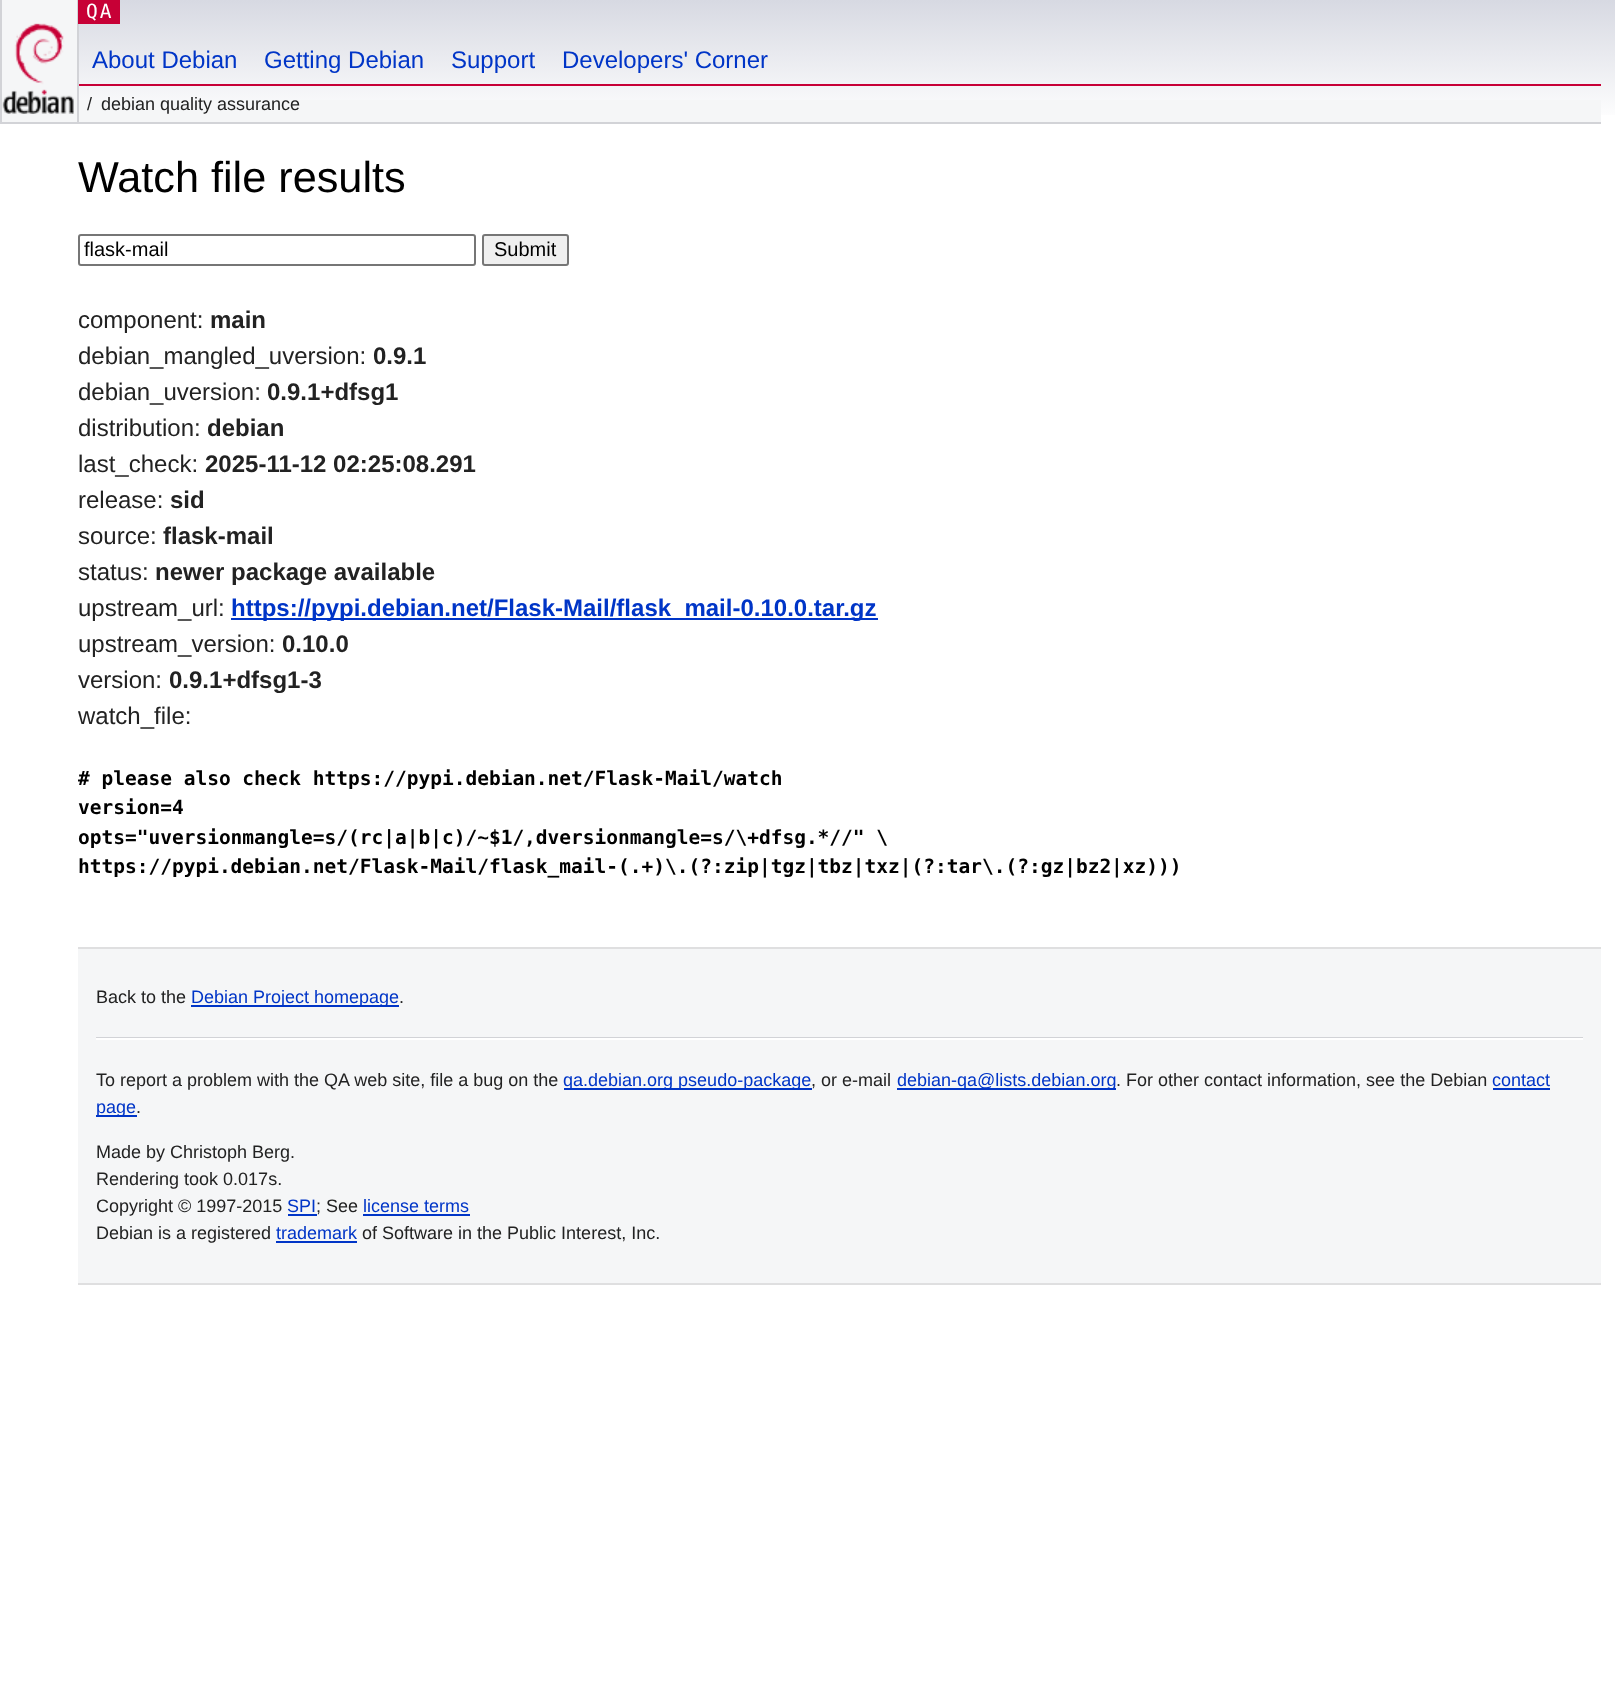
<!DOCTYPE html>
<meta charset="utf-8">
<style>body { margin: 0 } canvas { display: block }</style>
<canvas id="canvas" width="1615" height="1700"></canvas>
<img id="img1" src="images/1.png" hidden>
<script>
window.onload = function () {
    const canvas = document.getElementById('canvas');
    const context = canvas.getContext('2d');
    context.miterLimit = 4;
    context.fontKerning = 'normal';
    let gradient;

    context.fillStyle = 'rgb(255, 255, 255)';
    context.fillRect(0, 0, 1615, 1700);
    gradient = context.createLinearGradient(808, 0, 808, 123);
    gradient.addColorStop(0, 'rgb(215, 217, 226)');
    gradient.addColorStop(1, 'rgb(255, 255, 255)');
    context.fillStyle = gradient;
    context.fillRect(79, 0, 1536, 115);
    context.fillStyle = 'rgb(245, 246, 247)';
    context.fillRect(2, 0, 75, 122);
    context.fillStyle = 'rgb(199, 0, 54)';
    context.fillRect(78, 84, 1523, 2);
    context.fillStyle = 'rgb(210, 211, 215)';
    context.fillRect(78, 122, 1523, 2);
    context.fillRect(77, 0, 2, 123);
    context.fillRect(0, 122, 78, 2);
    context.fillRect(0, 0, 2, 123);
    context.drawImage(document.getElementById('img1'), 2, 23, 72, 91);
    context.fillStyle = 'rgb(199, 0, 54)';
    context.fillRect(78, 0, 42, 24);
    context.fillStyle = 'rgb(245, 246, 247)';
    context.fillRect(79, 100, 1522, 22);
    context.beginPath();
    context.roundRect(79, 235, 396, 30, 2);
    context.strokeStyle = 'rgb(118, 118, 118)';
    context.lineWidth = 2;
    context.stroke();
    context.fillStyle = 'rgb(239, 239, 239)';
    context.beginPath();
    context.roundRect(483, 235, 85, 30, 2);
    context.fill();
    context.stroke();
    context.fillStyle = 'rgb(0, 53, 199)';
    context.fillRect(231, 618, 647, 2);
    context.fillStyle = 'rgb(245, 246, 247)';
    context.fillRect(78, 949, 1523, 334);
    context.fillStyle = 'rgb(223, 223, 224)';
    context.fillRect(78, 947, 1523, 2);
    context.fillRect(78, 1283, 1523, 2);
    context.fillStyle = 'rgb(0, 53, 199)';
    context.fillRect(191, 1005, 208, 2);
    context.fillStyle = 'rgb(210, 211, 215)';
    context.fillRect(96, 1037, 1487, 1);
    context.fillStyle = 'rgb(255, 255, 255)';
    context.fillRect(96, 1038, 1487, 2);
    context.fillStyle = 'rgb(0, 53, 199)';
    context.fillRect(564, 1088, 248, 2);
    context.fillRect(897, 1088, 219, 2);
    context.fillRect(1493, 1088, 57, 2);
    context.fillRect(96, 1115, 41, 2);
    context.fillRect(288, 1214, 29, 2);
    context.fillRect(363, 1214, 107, 2);
    context.fillRect(276, 1241, 81, 2);
    context.letterSpacing = '2px';
    context.font = '19.5px DejaVu Sans Mono';
    context.fillStyle = 'rgb(255, 255, 255)';
    context.fillText('QA', 86, 18);
    context.letterSpacing = '0px';
    context.font = '24px Liberation Sans';
    context.fillStyle = 'rgb(0, 53, 199)';
    context.fillText('About Debian', 92, 68);
    context.fillText('Getting Debian', 264, 68);
    context.fillText('Support', 451, 68);
    context.fillText('Developers\' Corner', 562, 68);
    context.font = '18px Liberation Sans';
    context.fillStyle = 'rgb(34, 34, 34)';
    context.fillText('/', 87, 110);
    context.fillText('debian quality assurance', 101, 110);
    context.font = '43.25px Liberation Sans';
    context.fillStyle = 'rgb(0, 0, 0)';
    context.fillText('Watch file results', 78, 192);
    context.font = '20px Liberation Sans';
    context.fillText('flask-mail', 84, 256);
    context.fillText('Submit', 494, 256);
    context.font = '24px Liberation Sans';
    context.fillStyle = 'rgb(34, 34, 34)';
    context.fillText('component:', 78, 328);
    context.font = 'bold 24px Liberation Sans';
    context.fillText('main', 210, 328);
    context.font = '24px Liberation Sans';
    context.fillText('debian_mangled_uversion:', 78, 364);
    context.font = 'bold 24px Liberation Sans';
    context.fillText('0.9.1', 373, 364);
    context.font = '24px Liberation Sans';
    context.fillText('debian_uversion:', 78, 400);
    context.font = 'bold 24px Liberation Sans';
    context.fillText('0.9.1+dfsg1', 267, 400);
    context.font = '24px Liberation Sans';
    context.fillText('distribution:', 78, 436);
    context.font = 'bold 24px Liberation Sans';
    context.fillText('debian', 207, 436);
    context.font = '24px Liberation Sans';
    context.fillText('last_check:', 78, 472);
    context.font = 'bold 24px Liberation Sans';
    context.fillText('2025-11-12 02:25:08.291', 205, 472);
    context.font = '24px Liberation Sans';
    context.fillText('release:', 78, 508);
    context.font = 'bold 24px Liberation Sans';
    context.fillText('sid', 170, 508);
    context.font = '24px Liberation Sans';
    context.fillText('source:', 78, 544);
    context.font = 'bold 24px Liberation Sans';
    context.fillText('flask-mail', 163, 544);
    context.font = '24px Liberation Sans';
    context.fillText('status:', 78, 580);
    context.font = 'bold 24px Liberation Sans';
    context.fillText('newer package available', 155, 580);
    context.font = '24px Liberation Sans';
    context.fillText('upstream_url:', 78, 616);
    context.font = 'bold 24px Liberation Sans';
    context.fillStyle = 'rgb(0, 53, 199)';
    context.fillText('https://pypi.debian.net/Flask-Mail/flask_mail-0.10.0.tar.gz', 231, 616);
    context.font = '24px Liberation Sans';
    context.fillStyle = 'rgb(34, 34, 34)';
    context.fillText('upstream_version:', 78, 652);
    context.font = 'bold 24px Liberation Sans';
    context.fillText('0.10.0', 282, 652);
    context.font = '24px Liberation Sans';
    context.fillText('version:', 78, 688);
    context.font = 'bold 24px Liberation Sans';
    context.fillText('0.9.1+dfsg1-3', 169, 688);
    context.font = '24px Liberation Sans';
    context.fillText('watch_file:', 78, 724);
    context.font = 'bold 19.5px DejaVu Sans Mono';
    context.fillStyle = 'rgb(0, 0, 0)';
    context.fillText('# please also check https://pypi.debian.net/Flask-Mail/watch', 78, 785);
    context.fillText('version=4', 78, 814);
    context.fillText('opts="uversionmangle=s/(rc|a|b|c)/~$1/,dversionmangle=s/\\+dfsg.*//" \\', 78, 844);
    context.fillText('https://pypi.debian.net/Flask-Mail/flask_mail-(.+)\\.(?:zip|tgz|tbz|txz|(?:tar\\.(?:gz|bz2|xz)))', 78, 873);
    context.font = '18px Liberation Sans';
    context.fillStyle = 'rgb(34, 34, 34)';
    context.fillText('Back to the', 96, 1003);
    context.fillStyle = 'rgb(0, 53, 199)';
    context.fillText('Debian Project homepage', 191, 1003);
    context.fillStyle = 'rgb(34, 34, 34)';
    context.fillText('.', 399, 1003);
    context.fillText('To report a problem with the QA web site, file a bug on the', 96, 1086);
    context.fillStyle = 'rgb(0, 53, 199)';
    context.fillText('qa.debian.org pseudo-package', 563, 1086);
    context.fillStyle = 'rgb(34, 34, 34)';
    context.fillText(', or e-mail', 811, 1086);
    context.fillStyle = 'rgb(0, 53, 199)';
    context.fillText('debian-qa@lists.debian.org', 897, 1086);
    context.fillStyle = 'rgb(34, 34, 34)';
    context.fillText('. For other contact information, see the Debian', 1116, 1086);
    context.fillStyle = 'rgb(0, 53, 199)';
    context.fillText('contact', 1492, 1086);
    context.fillText('page', 96, 1113);
    context.fillStyle = 'rgb(34, 34, 34)';
    context.fillText('.', 136, 1113);
    context.fillText('Made by Christoph Berg.', 96, 1158);
    context.fillText('Rendering took 0.017s.', 96, 1185);
    context.fillText('Copyright © 1997-2015', 96, 1212);
    context.fillStyle = 'rgb(0, 53, 199)';
    context.fillText('SPI', 287, 1212);
    context.fillStyle = 'rgb(34, 34, 34)';
    context.fillText('; See', 316, 1212);
    context.fillStyle = 'rgb(0, 53, 199)';
    context.fillText('license terms', 363, 1212);
    context.fillStyle = 'rgb(34, 34, 34)';
    context.fillText('Debian is a registered', 96, 1239);
    context.fillStyle = 'rgb(0, 53, 199)';
    context.fillText('trademark', 276, 1239);
    context.fillStyle = 'rgb(34, 34, 34)';
    context.fillText('of Software in the Public Interest, Inc.', 362, 1239);
};
</script>
